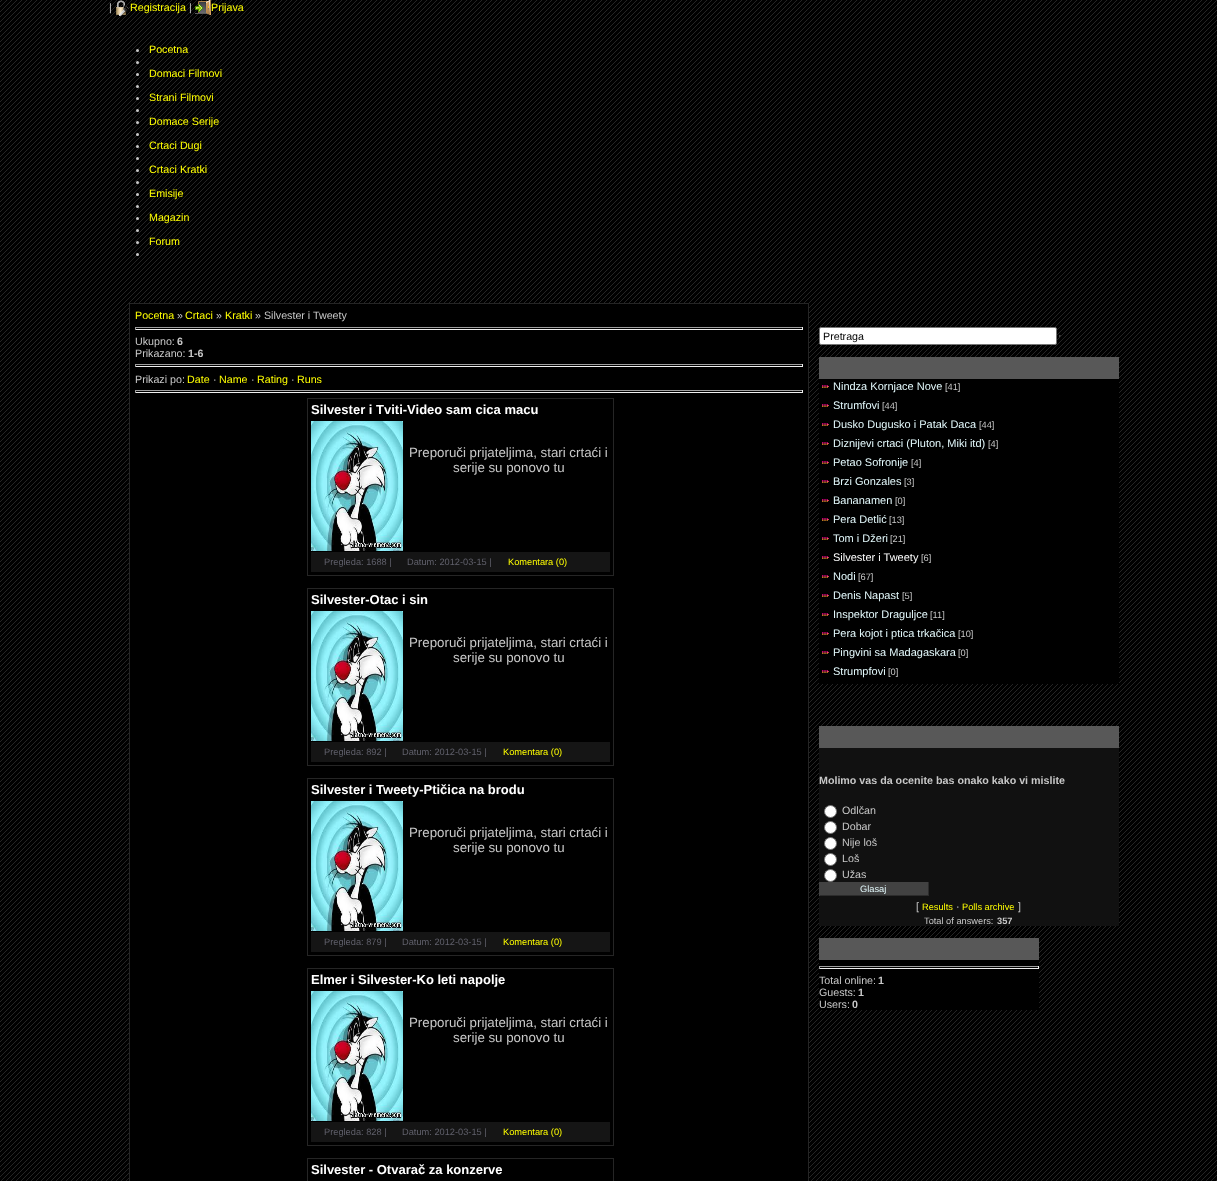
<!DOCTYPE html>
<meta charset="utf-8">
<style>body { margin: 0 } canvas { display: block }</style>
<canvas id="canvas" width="1217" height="1181"></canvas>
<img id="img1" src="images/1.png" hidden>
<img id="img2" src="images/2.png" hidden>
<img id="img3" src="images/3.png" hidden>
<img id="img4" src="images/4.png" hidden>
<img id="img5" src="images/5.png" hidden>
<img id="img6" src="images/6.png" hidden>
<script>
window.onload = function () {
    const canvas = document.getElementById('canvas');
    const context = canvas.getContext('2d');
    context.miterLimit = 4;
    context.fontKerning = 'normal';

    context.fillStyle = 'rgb(255, 255, 255)';
    context.fillRect(0, 0, 1217, 1181);
    context.drawImage(document.getElementById('img1'), 0, 0, 1217, 1181);
    context.drawImage(document.getElementById('img2'), 116, 0, 13, 16);
    context.drawImage(document.getElementById('img3'), 195, 0, 16, 15);
    context.fillStyle = 'rgb(200, 200, 200)';
    context.beginPath();
    context.arc(137.5, 50.5, 1.5, 0, 2 * Math.PI);
    context.fill();
    context.beginPath();
    context.arc(137.5, 62.5, 1.5, 0, 2 * Math.PI);
    context.fill();
    context.beginPath();
    context.arc(137.5, 74.5, 1.5, 0, 2 * Math.PI);
    context.fill();
    context.beginPath();
    context.arc(137.5, 86.5, 1.5, 0, 2 * Math.PI);
    context.fill();
    context.beginPath();
    context.arc(137.5, 98.5, 1.5, 0, 2 * Math.PI);
    context.fill();
    context.beginPath();
    context.arc(137.5, 110.5, 1.5, 0, 2 * Math.PI);
    context.fill();
    context.beginPath();
    context.arc(137.5, 122.5, 1.5, 0, 2 * Math.PI);
    context.fill();
    context.beginPath();
    context.arc(137.5, 134.5, 1.5, 0, 2 * Math.PI);
    context.fill();
    context.beginPath();
    context.arc(137.5, 146.5, 1.5, 0, 2 * Math.PI);
    context.fill();
    context.beginPath();
    context.arc(137.5, 158.5, 1.5, 0, 2 * Math.PI);
    context.fill();
    context.beginPath();
    context.arc(137.5, 170.5, 1.5, 0, 2 * Math.PI);
    context.fill();
    context.beginPath();
    context.arc(137.5, 182.5, 1.5, 0, 2 * Math.PI);
    context.fill();
    context.beginPath();
    context.arc(137.5, 194.5, 1.5, 0, 2 * Math.PI);
    context.fill();
    context.beginPath();
    context.arc(137.5, 206.5, 1.5, 0, 2 * Math.PI);
    context.fill();
    context.beginPath();
    context.arc(137.5, 218.5, 1.5, 0, 2 * Math.PI);
    context.fill();
    context.beginPath();
    context.arc(137.5, 230.5, 1.5, 0, 2 * Math.PI);
    context.fill();
    context.beginPath();
    context.arc(137.5, 242.5, 1.5, 0, 2 * Math.PI);
    context.fill();
    context.beginPath();
    context.arc(137.5, 254.5, 1.5, 0, 2 * Math.PI);
    context.fill();
    context.strokeStyle = 'rgb(37, 37, 37)';
    context.strokeRect(129.5, 303.5, 679, 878);
    context.fillStyle = 'rgb(0, 0, 0)';
    context.fillRect(130, 304, 678, 877);
    context.fillStyle = 'rgb(159, 159, 159)';
    context.fillRect(135, 327, 668, 1);
    context.fillStyle = 'rgb(238, 238, 238)';
    context.fillRect(802, 327, 1, 3);
    context.fillRect(135, 329, 668, 1);
    context.fillStyle = 'rgb(159, 159, 159)';
    context.fillRect(135, 327, 1, 3);
    context.fillRect(135, 364, 668, 1);
    context.fillStyle = 'rgb(238, 238, 238)';
    context.fillRect(802, 364, 1, 3);
    context.fillRect(135, 366, 668, 1);
    context.fillStyle = 'rgb(159, 159, 159)';
    context.fillRect(135, 364, 1, 3);
    context.fillRect(135, 390, 668, 1);
    context.fillStyle = 'rgb(238, 238, 238)';
    context.fillRect(802, 390, 1, 3);
    context.fillRect(135, 392, 668, 1);
    context.fillStyle = 'rgb(159, 159, 159)';
    context.fillRect(135, 390, 1, 3);
    context.strokeRect(307.5, 398.5, 306, 177);
    context.drawImage(document.getElementById('img4'), 311, 421, 92, 130);
    context.fillStyle = 'rgb(21, 21, 21)';
    context.fillRect(311, 552, 299, 20);
    context.strokeRect(307.5, 588.5, 306, 177);
    context.drawImage(document.getElementById('img4'), 311, 611, 92, 130);
    context.fillRect(311, 742, 299, 20);
    context.strokeRect(307.5, 778.5, 306, 177);
    context.drawImage(document.getElementById('img5'), 311, 801, 92, 130);
    context.fillRect(311, 932, 299, 20);
    context.strokeRect(307.5, 968.5, 306, 177);
    context.drawImage(document.getElementById('img5'), 311, 991, 92, 130);
    context.fillRect(311, 1122, 299, 20);
    context.strokeRect(307.5, 1158.5, 306, 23);
    context.fillStyle = 'rgb(255, 255, 255)';
    context.beginPath();
    context.roundRect(819.5, 327.5, 237, 17, 1.5);
    context.fill();
    context.strokeStyle = 'rgb(118, 118, 118)';
    context.stroke();
    context.fillStyle = 'rgb(44, 44, 44)';
    context.fillRect(1060, 335, 1, 2);
    context.fillRect(1059, 336, 2, 1);
    context.fillStyle = 'rgb(66, 66, 66)';
    context.fillRect(1059, 335, 1, 2);
    context.fillStyle = 'rgb(0, 0, 0)';
    context.fillRect(819, 379, 300, 305);
    context.fillStyle = 'rgb(88, 88, 88)';
    context.fillRect(819, 357, 300, 22);
    context.drawImage(document.getElementById('img6'), 822, 385, 7, 3);
    context.drawImage(document.getElementById('img6'), 822, 404, 7, 3);
    context.drawImage(document.getElementById('img6'), 822, 423, 7, 3);
    context.drawImage(document.getElementById('img6'), 822, 442, 7, 3);
    context.drawImage(document.getElementById('img6'), 822, 461, 7, 3);
    context.drawImage(document.getElementById('img6'), 822, 480, 7, 3);
    context.drawImage(document.getElementById('img6'), 822, 499, 7, 3);
    context.drawImage(document.getElementById('img6'), 822, 518, 7, 3);
    context.drawImage(document.getElementById('img6'), 822, 537, 7, 3);
    context.drawImage(document.getElementById('img6'), 822, 556, 7, 3);
    context.drawImage(document.getElementById('img6'), 822, 575, 7, 3);
    context.drawImage(document.getElementById('img6'), 822, 594, 7, 3);
    context.drawImage(document.getElementById('img6'), 822, 613, 7, 3);
    context.drawImage(document.getElementById('img6'), 822, 632, 7, 3);
    context.drawImage(document.getElementById('img6'), 822, 651, 7, 3);
    context.drawImage(document.getElementById('img6'), 822, 670, 7, 3);
    context.fillStyle = 'rgb(17, 17, 17)';
    context.fillRect(819, 748, 300, 178);
    context.fillStyle = 'rgb(88, 88, 88)';
    context.fillRect(819, 726, 300, 22);
    context.fillStyle = 'rgb(255, 255, 255)';
    context.beginPath();
    context.arc(830.5, 811.5, 6, 0, 2 * Math.PI);
    context.fill();
    context.stroke();
    context.beginPath();
    context.arc(830.5, 827.5, 6, 0, 2 * Math.PI);
    context.fill();
    context.stroke();
    context.beginPath();
    context.arc(830.5, 843.5, 6, 0, 2 * Math.PI);
    context.fill();
    context.stroke();
    context.beginPath();
    context.arc(830.5, 859.5, 6, 0, 2 * Math.PI);
    context.fill();
    context.stroke();
    context.beginPath();
    context.arc(830.5, 875.5, 6, 0, 2 * Math.PI);
    context.fill();
    context.stroke();
    context.fillStyle = 'rgb(66, 66, 66)';
    context.fillRect(820, 882, 108, 13);
    context.fillStyle = 'rgb(44, 44, 44)';
    context.fillRect(928, 882, 1, 14);
    context.fillRect(819, 895, 110, 1);
    context.fillStyle = 'rgb(66, 66, 66)';
    context.fillRect(819, 882, 1, 14);
    context.fillStyle = 'rgb(0, 0, 0)';
    context.fillRect(819, 960, 220, 50);
    context.fillStyle = 'rgb(88, 88, 88)';
    context.fillRect(819, 938, 220, 22);
    context.fillStyle = 'rgb(159, 159, 159)';
    context.fillRect(819, 966, 220, 1);
    context.fillStyle = 'rgb(238, 238, 238)';
    context.fillRect(1038, 966, 1, 3);
    context.fillRect(819, 968, 220, 1);
    context.fillStyle = 'rgb(159, 159, 159)';
    context.fillRect(819, 966, 1, 3);
    context.font = '10.7px Liberation Sans';
    context.fillStyle = 'rgb(200, 200, 200)';
    context.fillText('|', 109, 11);
    context.fillStyle = 'rgb(255, 255, 0)';
    context.fillText('Registracija', 130, 11);
    context.fillStyle = 'rgb(200, 200, 200)';
    context.fillText('|', 189, 11);
    context.fillStyle = 'rgb(255, 255, 0)';
    context.fillText('Prijava', 211, 11);
    context.fillText('Pocetna', 149, 53);
    context.fillText('Domaci Filmovi', 149, 77);
    context.fillText('Strani Filmovi', 149, 101);
    context.fillText('Domace Serije', 149, 125);
    context.fillText('Crtaci Dugi', 149, 149);
    context.fillText('Crtaci Kratki', 149, 173);
    context.fillText('Emisije', 149, 197);
    context.fillText('Magazin', 149, 221);
    context.fillText('Forum', 149, 245);
    context.fillText('Pocetna', 135, 319);
    context.fillStyle = 'rgb(200, 200, 200)';
    context.fillText('»', 177, 319);
    context.fillStyle = 'rgb(255, 255, 0)';
    context.fillText('Crtaci', 185, 319);
    context.fillStyle = 'rgb(200, 200, 200)';
    context.fillText('»', 216, 319);
    context.fillStyle = 'rgb(255, 255, 0)';
    context.fillText('Kratki', 225, 319);
    context.fillStyle = 'rgb(200, 200, 200)';
    context.fillText('» Silvester i Tweety', 255, 319);
    context.fillText('Ukupno:', 135, 345);
    context.font = 'bold 10.7px Liberation Sans';
    context.fillText('6', 177, 345);
    context.font = '10.7px Liberation Sans';
    context.fillText('Prikazano:', 135, 357);
    context.font = 'bold 10.7px Liberation Sans';
    context.fillText('1-6', 188, 357);
    context.font = '10.7px Liberation Sans';
    context.fillText('Prikazi po:', 135, 383);
    context.fillStyle = 'rgb(255, 255, 0)';
    context.fillText('Date', 187, 383);
    context.fillStyle = 'rgb(200, 200, 200)';
    context.fillText('·', 213, 383);
    context.fillStyle = 'rgb(255, 255, 0)';
    context.fillText('Name', 219, 383);
    context.fillStyle = 'rgb(200, 200, 200)';
    context.fillText('·', 251, 383);
    context.fillStyle = 'rgb(255, 255, 0)';
    context.fillText('Rating', 257, 383);
    context.fillStyle = 'rgb(200, 200, 200)';
    context.fillText('·', 291, 383);
    context.fillStyle = 'rgb(255, 255, 0)';
    context.fillText('Runs', 297, 383);
    context.font = 'bold 13px Liberation Sans';
    context.fillStyle = 'rgb(255, 255, 255)';
    context.fillText('Silvester i Tviti-Video sam cica macu', 311, 414);
    context.font = '13.3px Liberation Sans';
    context.fillStyle = 'rgb(200, 200, 200)';
    context.fillText('Preporuči prijateljima, stari crtaći i', 409, 457);
    context.fillText('serije su ponovo tu', 453, 472);
    context.font = '9.25px Liberation Sans';
    context.fillStyle = 'rgb(96, 96, 107)';
    context.fillText('Pregleda: 1688 |', 324, 565);
    context.fillText('Datum: 2012-03-15 |', 407, 565);
    context.fillStyle = 'rgb(255, 255, 0)';
    context.fillText('Komentara (0)', 508, 565);
    context.font = 'bold 13px Liberation Sans';
    context.fillStyle = 'rgb(255, 255, 255)';
    context.fillText('Silvester-Otac i sin', 311, 604);
    context.font = '13.3px Liberation Sans';
    context.fillStyle = 'rgb(200, 200, 200)';
    context.fillText('Preporuči prijateljima, stari crtaći i', 409, 647);
    context.fillText('serije su ponovo tu', 453, 662);
    context.font = '9.25px Liberation Sans';
    context.fillStyle = 'rgb(96, 96, 107)';
    context.fillText('Pregleda: 892 |', 324, 755);
    context.fillText('Datum: 2012-03-15 |', 402, 755);
    context.fillStyle = 'rgb(255, 255, 0)';
    context.fillText('Komentara (0)', 503, 755);
    context.font = 'bold 13px Liberation Sans';
    context.fillStyle = 'rgb(255, 255, 255)';
    context.fillText('Silvester i Tweety-Ptičica na brodu', 311, 794);
    context.font = '13.3px Liberation Sans';
    context.fillStyle = 'rgb(200, 200, 200)';
    context.fillText('Preporuči prijateljima, stari crtaći i', 409, 837);
    context.fillText('serije su ponovo tu', 453, 852);
    context.font = '9.25px Liberation Sans';
    context.fillStyle = 'rgb(96, 96, 107)';
    context.fillText('Pregleda: 879 |', 324, 945);
    context.fillText('Datum: 2012-03-15 |', 402, 945);
    context.fillStyle = 'rgb(255, 255, 0)';
    context.fillText('Komentara (0)', 503, 945);
    context.font = 'bold 13px Liberation Sans';
    context.fillStyle = 'rgb(255, 255, 255)';
    context.fillText('Elmer i Silvester-Ko leti napolje', 311, 984);
    context.font = '13.3px Liberation Sans';
    context.fillStyle = 'rgb(200, 200, 200)';
    context.fillText('Preporuči prijateljima, stari crtaći i', 409, 1027);
    context.fillText('serije su ponovo tu', 453, 1042);
    context.font = '9.25px Liberation Sans';
    context.fillStyle = 'rgb(96, 96, 107)';
    context.fillText('Pregleda: 828 |', 324, 1135);
    context.fillText('Datum: 2012-03-15 |', 402, 1135);
    context.fillStyle = 'rgb(255, 255, 0)';
    context.fillText('Komentara (0)', 503, 1135);
    context.font = 'bold 13px Liberation Sans';
    context.fillStyle = 'rgb(255, 255, 255)';
    context.fillText('Silvester - Otvarač za konzerve', 311, 1174);
    context.font = '10.7px Liberation Sans';
    context.fillStyle = 'rgb(0, 0, 0)';
    context.fillText('Pretraga', 823, 340);
    context.font = '11px Liberation Sans';
    context.fillStyle = 'rgb(228, 250, 253)';
    context.fillText('Nindza Kornjace Nove', 833, 390);
    context.font = '9.25px Liberation Sans';
    context.fillStyle = 'rgb(200, 200, 200)';
    context.fillText('[41]', 945, 390);
    context.font = '11px Liberation Sans';
    context.fillStyle = 'rgb(228, 250, 253)';
    context.fillText('Strumfovi', 833, 409);
    context.font = '9.25px Liberation Sans';
    context.fillStyle = 'rgb(200, 200, 200)';
    context.fillText('[44]', 882, 409);
    context.font = '11px Liberation Sans';
    context.fillStyle = 'rgb(228, 250, 253)';
    context.fillText('Dusko Dugusko i Patak Daca', 833, 428);
    context.font = '9.25px Liberation Sans';
    context.fillStyle = 'rgb(200, 200, 200)';
    context.fillText('[44]', 979, 428);
    context.font = '11px Liberation Sans';
    context.fillStyle = 'rgb(228, 250, 253)';
    context.fillText('Diznijevi crtaci (Pluton, Miki itd)', 833, 447);
    context.font = '9.25px Liberation Sans';
    context.fillStyle = 'rgb(200, 200, 200)';
    context.fillText('[4]', 988, 447);
    context.font = '11px Liberation Sans';
    context.fillStyle = 'rgb(228, 250, 253)';
    context.fillText('Petao Sofronije', 833, 466);
    context.font = '9.25px Liberation Sans';
    context.fillStyle = 'rgb(200, 200, 200)';
    context.fillText('[4]', 911, 466);
    context.font = '11px Liberation Sans';
    context.fillStyle = 'rgb(228, 250, 253)';
    context.fillText('Brzi Gonzales', 833, 485);
    context.font = '9.25px Liberation Sans';
    context.fillStyle = 'rgb(200, 200, 200)';
    context.fillText('[3]', 904, 485);
    context.font = '11px Liberation Sans';
    context.fillStyle = 'rgb(228, 250, 253)';
    context.fillText('Bananamen', 833, 504);
    context.font = '9.25px Liberation Sans';
    context.fillStyle = 'rgb(200, 200, 200)';
    context.fillText('[0]', 895, 504);
    context.font = '11px Liberation Sans';
    context.fillStyle = 'rgb(228, 250, 253)';
    context.fillText('Pera Detlić', 833, 523);
    context.font = '9.25px Liberation Sans';
    context.fillStyle = 'rgb(200, 200, 200)';
    context.fillText('[13]', 889, 523);
    context.font = '11px Liberation Sans';
    context.fillStyle = 'rgb(228, 250, 253)';
    context.fillText('Tom i Džeri', 833, 542);
    context.font = '9.25px Liberation Sans';
    context.fillStyle = 'rgb(200, 200, 200)';
    context.fillText('[21]', 890, 542);
    context.font = '11px Liberation Sans';
    context.fillStyle = 'rgb(255, 255, 255)';
    context.fillText('Silvester i Tweety', 833, 561);
    context.font = '9.25px Liberation Sans';
    context.fillStyle = 'rgb(200, 200, 200)';
    context.fillText('[6]', 921, 561);
    context.font = '11px Liberation Sans';
    context.fillStyle = 'rgb(228, 250, 253)';
    context.fillText('Nodi', 833, 580);
    context.font = '9.25px Liberation Sans';
    context.fillStyle = 'rgb(200, 200, 200)';
    context.fillText('[67]', 858, 580);
    context.font = '11px Liberation Sans';
    context.fillStyle = 'rgb(228, 250, 253)';
    context.fillText('Denis Napast', 833, 599);
    context.font = '9.25px Liberation Sans';
    context.fillStyle = 'rgb(200, 200, 200)';
    context.fillText('[5]', 902, 599);
    context.font = '11px Liberation Sans';
    context.fillStyle = 'rgb(228, 250, 253)';
    context.fillText('Inspektor Draguljce', 833, 618);
    context.font = '9.25px Liberation Sans';
    context.fillStyle = 'rgb(200, 200, 200)';
    context.fillText('[11]', 930, 618);
    context.font = '11px Liberation Sans';
    context.fillStyle = 'rgb(228, 250, 253)';
    context.fillText('Pera kojot i ptica trkačica', 833, 637);
    context.font = '9.25px Liberation Sans';
    context.fillStyle = 'rgb(200, 200, 200)';
    context.fillText('[10]', 958, 637);
    context.font = '11px Liberation Sans';
    context.fillStyle = 'rgb(228, 250, 253)';
    context.fillText('Pingvini sa Madagaskara', 833, 656);
    context.font = '9.25px Liberation Sans';
    context.fillStyle = 'rgb(200, 200, 200)';
    context.fillText('[0]', 958, 656);
    context.font = '11px Liberation Sans';
    context.fillStyle = 'rgb(228, 250, 253)';
    context.fillText('Strumpfovi', 833, 675);
    context.font = '9.25px Liberation Sans';
    context.fillStyle = 'rgb(200, 200, 200)';
    context.fillText('[0]', 888, 675);
    context.font = 'bold 10.7px Liberation Sans';
    context.fillText('Molimo vas da ocenite bas onako kako vi mislite', 819, 784);
    context.font = '10.7px Liberation Sans';
    context.fillText('Odlčan', 842, 814);
    context.fillText('Dobar', 842, 830);
    context.fillText('Nije loš', 842, 846);
    context.fillText('Loš', 842, 862);
    context.fillText('Užas', 842, 878);
    context.font = '9.25px Liberation Sans';
    context.fillStyle = 'rgb(228, 250, 253)';
    context.fillText('Glasaj', 860, 892);
    context.font = '10.7px Liberation Sans';
    context.fillStyle = 'rgb(200, 200, 200)';
    context.fillText('[', 916, 910);
    context.font = '9.25px Liberation Sans';
    context.fillStyle = 'rgb(255, 255, 0)';
    context.fillText('Results', 922, 910);
    context.font = '10.7px Liberation Sans';
    context.fillStyle = 'rgb(200, 200, 200)';
    context.fillText('·', 956, 910);
    context.font = '9.25px Liberation Sans';
    context.fillStyle = 'rgb(255, 255, 0)';
    context.fillText('Polls archive', 962, 910);
    context.font = '10.7px Liberation Sans';
    context.fillStyle = 'rgb(200, 200, 200)';
    context.fillText(']', 1018, 910);
    context.font = '9.25px Liberation Sans';
    context.fillText('Total of answers:', 924, 924);
    context.font = 'bold 9.25px Liberation Sans';
    context.fillText('357', 997, 924);
    context.font = '10.7px Liberation Sans';
    context.fillText('Total online:', 819, 984);
    context.font = 'bold 10.7px Liberation Sans';
    context.fillText('1', 878, 984);
    context.font = '10.7px Liberation Sans';
    context.fillText('Guests:', 819, 996);
    context.font = 'bold 10.7px Liberation Sans';
    context.fillText('1', 858, 996);
    context.font = '10.7px Liberation Sans';
    context.fillText('Users:', 819, 1008);
    context.font = 'bold 10.7px Liberation Sans';
    context.fillText('0', 852, 1008);
};
</script>
